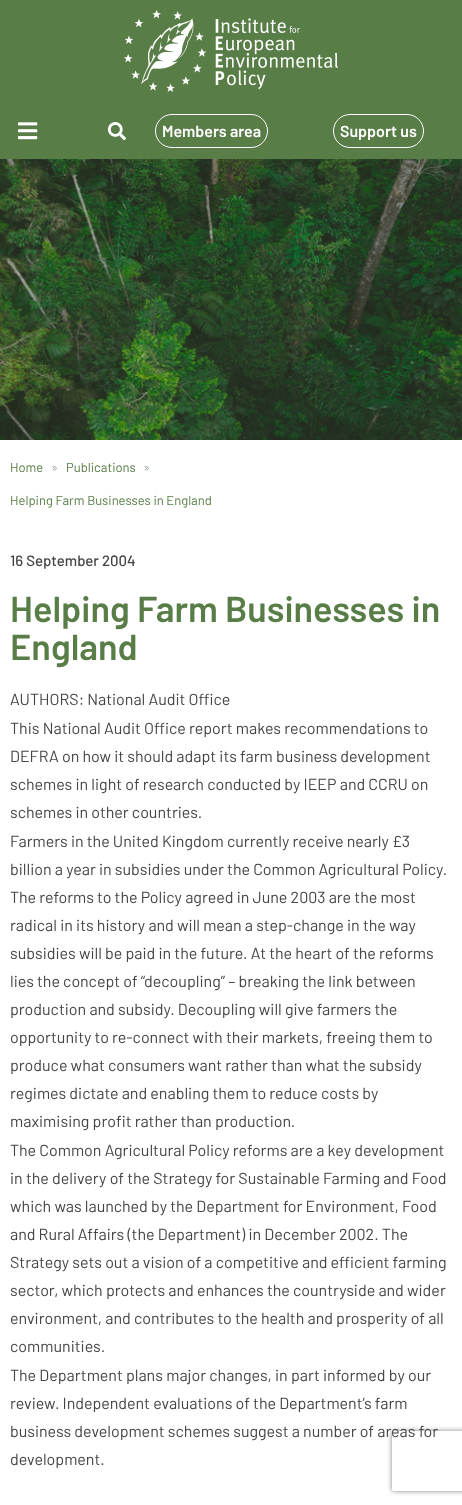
<!DOCTYPE html>
<meta charset="utf-8">
<style>body { margin: 0 } canvas { display: block }</style>
<canvas id="canvas" width="462" height="1505"></canvas>
<img id="img1" src="images/1.png" hidden>
<img id="img2" src="images/2.png" hidden>
<img id="img3" src="images/3.png" hidden>
<img id="img4" src="images/4.png" hidden>
<script>
window.onload = function () {
    const canvas = document.getElementById('canvas');
    const context = canvas.getContext('2d');
    context.miterLimit = 4;
    context.fontKerning = 'normal';

    context.fillStyle = 'rgb(255, 255, 255)';
    context.fillRect(0, 0, 462, 1505);
    context.fillStyle = 'rgb(88, 125, 70)';
    context.fillRect(0, 0, 462, 159);
    context.drawImage(document.getElementById('img1'), 124, 10, 214, 82);
    context.drawImage(document.getElementById('img2'), 18, 122, 20, 18);
    context.drawImage(document.getElementById('img3'), 107, 122, 19, 19);
    context.beginPath();
    context.roundRect(155.5, 114.5, 112, 33, 16.5);
    context.strokeStyle = 'rgb(255, 255, 255)';
    context.stroke();
    context.beginPath();
    context.roundRect(333.5, 114.5, 90, 33, 16.5);
    context.stroke();
    context.drawImage(document.getElementById('img4'), 0, 159, 462, 281);
    context.save();
    context.beginPath();
    context.moveTo(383, 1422);
    context.lineTo(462, 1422);
    context.lineTo(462, 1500);
    context.lineTo(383, 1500);
    context.closePath();
    context.moveTo(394, 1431);
    context.lineTo(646, 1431);
    context.bezierCurveTo(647, 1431, 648, 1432, 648, 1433);
    context.lineTo(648, 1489);
    context.bezierCurveTo(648, 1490, 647, 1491, 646, 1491);
    context.lineTo(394, 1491);
    context.bezierCurveTo(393, 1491, 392, 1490, 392, 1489);
    context.lineTo(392, 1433);
    context.bezierCurveTo(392, 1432, 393, 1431, 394, 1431);
    context.closePath();
    context.clip('evenodd');
    context.fillStyle = 'rgb(128, 128, 128)';
    context.filter = 'blur(2.5px)';
    context.beginPath();
    context.roundRect(392, 1431, 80, 60, 2);
    context.fill();
    context.filter = 'none';
    context.restore();
    context.font = '600 16px Barlow';
    context.fillStyle = 'rgb(255, 255, 255)';
    context.fillText('Members area', 162, 137);
    context.fillText('Support us', 340, 137);
    context.font = '13px Barlow';
    context.fillStyle = 'rgb(88, 125, 70)';
    context.fillText('Home', 10, 472);
    context.fillStyle = 'rgb(149, 159, 165)';
    context.fillText('»', 51, 472);
    context.fillStyle = 'rgb(88, 125, 70)';
    context.fillText('Publications', 66, 472);
    context.fillStyle = 'rgb(149, 159, 165)';
    context.fillText('»', 143, 472);
    context.fillStyle = 'rgb(88, 125, 70)';
    context.fillText('Helping Farm Businesses in England', 10, 505);
    context.font = '500 15px Barlow';
    context.fillStyle = 'rgb(69, 69, 70)';
    context.fillText('16 September 2004', 10, 566);
    context.font = '600 36px Barlow';
    context.fillStyle = 'rgb(88, 125, 70)';
    context.fillText('Helping Farm Businesses in', 10, 622);
    context.fillText('England', 10, 660);
    context.font = '16px Barlow';
    context.fillStyle = 'rgb(69, 69, 70)';
    context.fillText('AUTHORS: National Audit Office', 10, 705);
    context.fillText('This National Audit Office report makes recommendations to', 10, 734);
    context.fillText('DEFRA on how it should adapt its farm business development', 10, 762);
    context.fillText('schemes in light of research conducted by IEEP and CCRU on', 10, 790);
    context.fillText('schemes in other countries.', 10, 818);
    context.fillText('Farmers in the United Kingdom currently receive nearly £3', 10, 847);
    context.fillText('billion a year in subsidies under the Common Agricultural Policy.', 10, 875);
    context.fillText('The reforms to the Policy agreed in June 2003 are the most', 10, 903);
    context.fillText('radical in its history and will mean a step-change in the way', 10, 931);
    context.fillText('subsidies will be paid in the future. At the heart of the reforms', 10, 959);
    context.fillText('lies the concept of “decoupling” – breaking the link between', 10, 987);
    context.fillText('production and subsidy. Decoupling will give farmers the', 10, 1015);
    context.fillText('opportunity to re-connect with their markets, freeing them to', 10, 1043);
    context.fillText('produce what consumers want rather than what the subsidy', 10, 1071);
    context.fillText('regimes dictate and enabling them to reduce costs by', 10, 1099);
    context.fillText('maximising profit rather than production.', 10, 1127);
    context.fillText('The Common Agricultural Policy reforms are a key development', 10, 1156);
    context.fillText('in the delivery of the Strategy for Sustainable Farming and Food', 10, 1184);
    context.fillText('which was launched by the Department for Environment, Food', 10, 1212);
    context.fillText('and Rural Affairs (the Department) in December 2002. The', 10, 1240);
    context.fillText('Strategy sets out a vision of a competitive and efficient farming', 10, 1268);
    context.fillText('sector, which protects and enhances the countryside and wider', 10, 1296);
    context.fillText('environment, and contributes to the health and prosperity of all', 10, 1324);
    context.fillText('communities.', 10, 1352);
    context.fillText('The Department plans major changes, in part informed by our', 10, 1381);
    context.fillText('review. Independent evaluations of the Department’s farm', 10, 1409);
    context.fillText('business development schemes suggest a number of areas for', 10, 1437);
    context.fillText('development.', 10, 1465);
};
</script>
